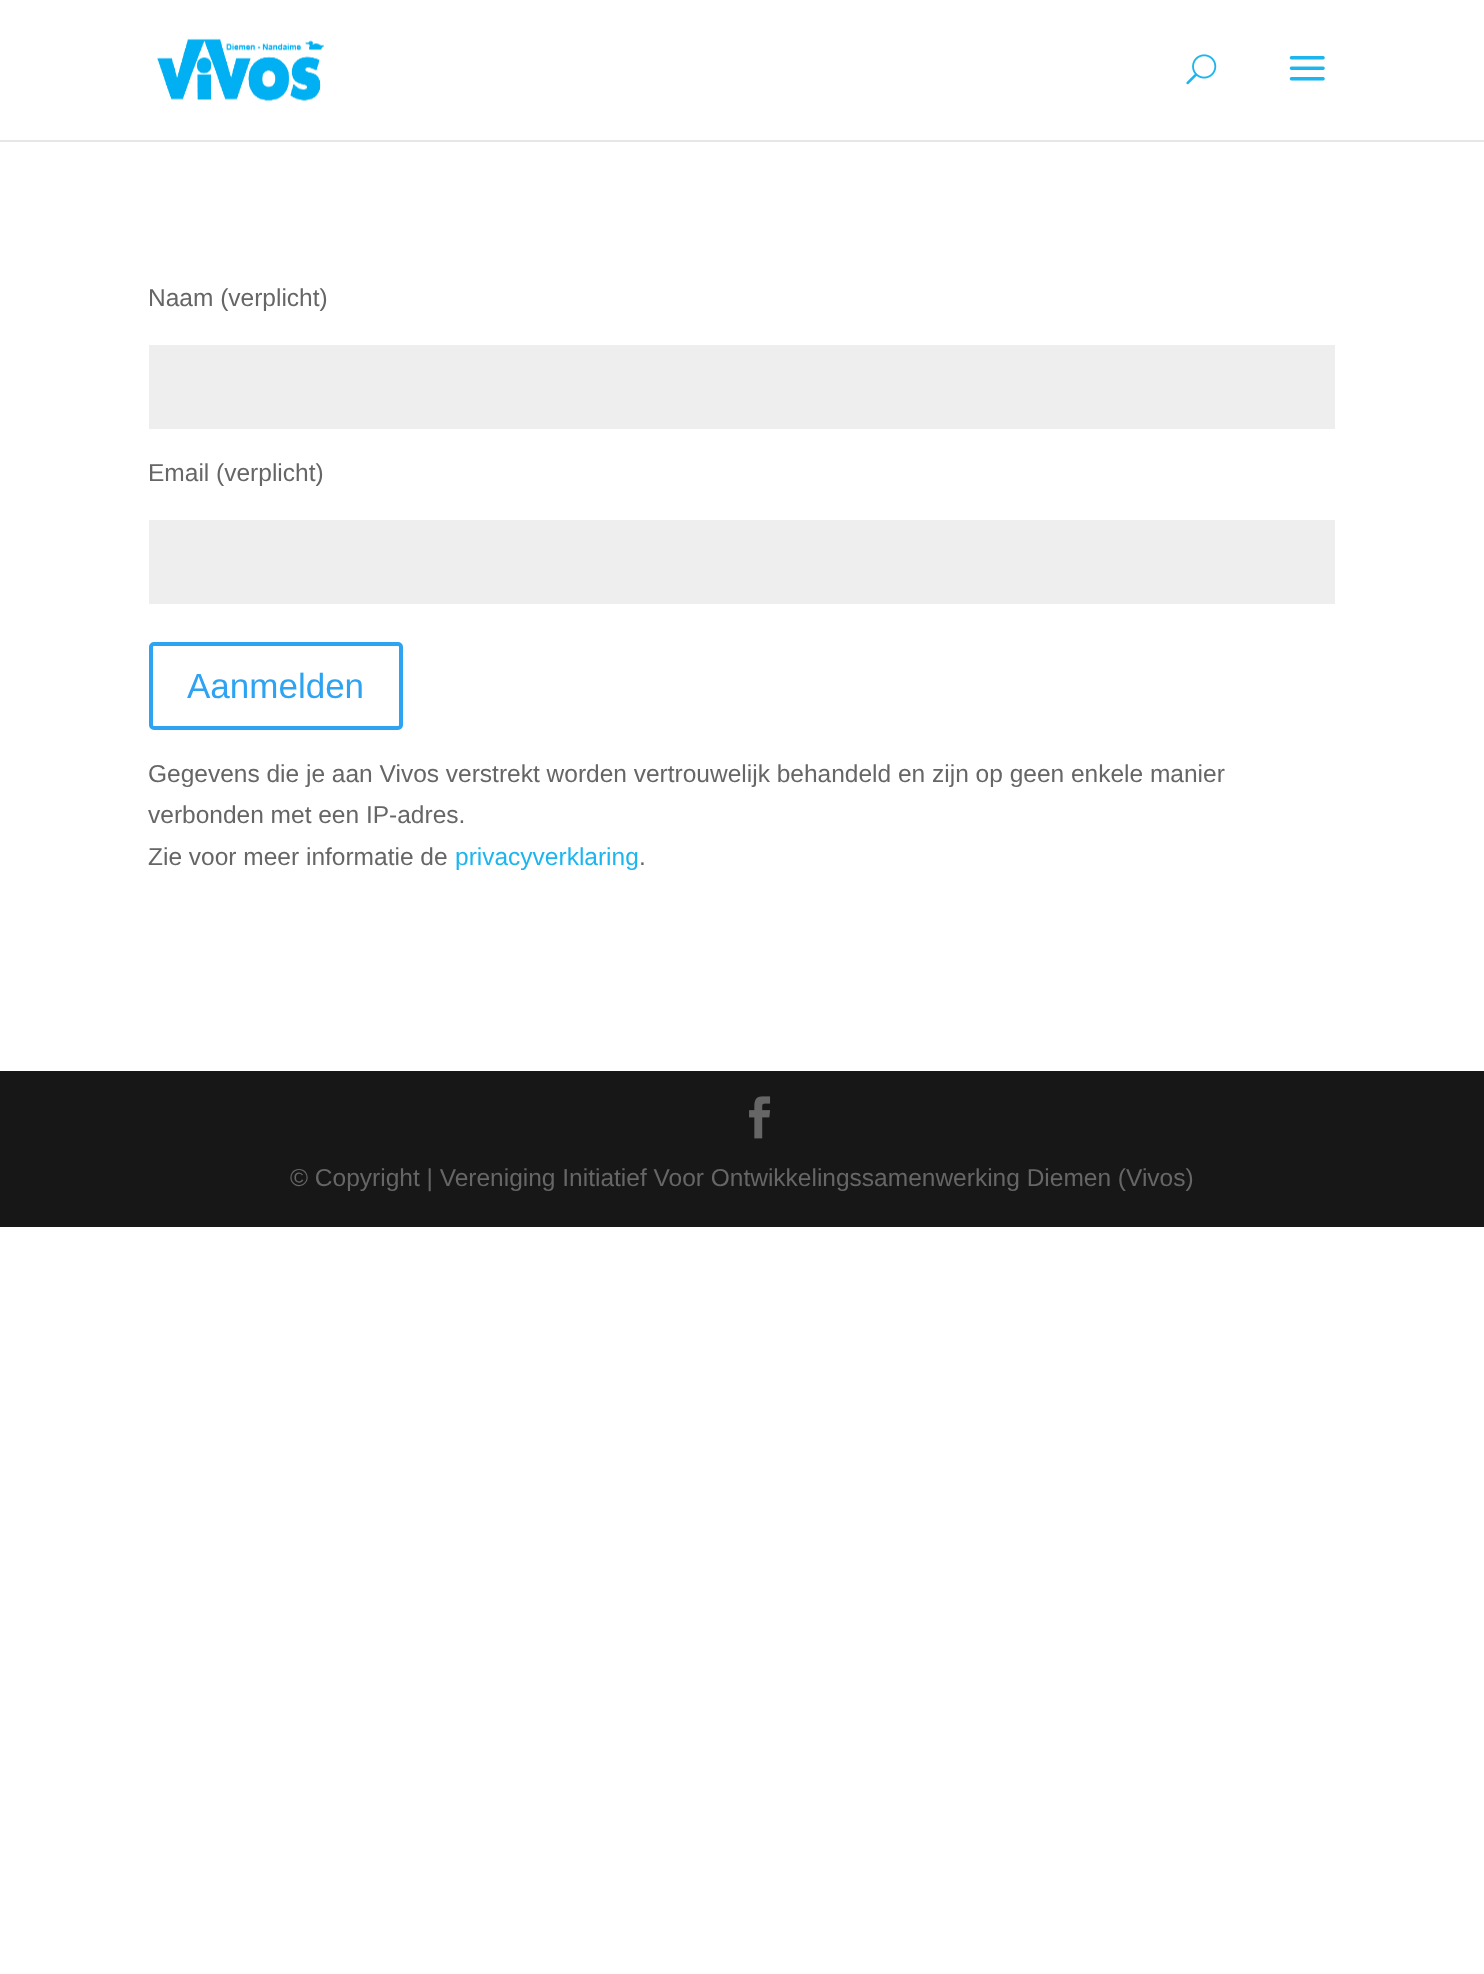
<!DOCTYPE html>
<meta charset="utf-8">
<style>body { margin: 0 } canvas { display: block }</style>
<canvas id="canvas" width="1484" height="1974"></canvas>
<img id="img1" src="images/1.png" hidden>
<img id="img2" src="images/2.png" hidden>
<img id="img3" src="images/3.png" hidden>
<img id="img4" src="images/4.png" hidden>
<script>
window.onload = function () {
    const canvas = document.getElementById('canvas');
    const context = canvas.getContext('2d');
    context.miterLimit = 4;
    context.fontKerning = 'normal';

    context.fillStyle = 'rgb(255, 255, 255)';
    context.fillRect(0, 0, 1484, 1974);
    context.fillStyle = 'rgb(230, 230, 230)';
    context.fillRect(0, 140, 1484, 2);
    context.drawImage(document.getElementById('img1'), 157, 38, 167, 63);
    context.drawImage(document.getElementById('img2'), 1186, 54, 31, 31);
    context.drawImage(document.getElementById('img3'), 1289, 56, 36, 25);
    context.fillStyle = 'rgb(238, 238, 238)';
    context.fillRect(149, 345, 1186, 84);
    context.fillRect(149, 520, 1186, 84);
    context.beginPath();
    context.roundRect(151, 644, 250, 84, 3);
    context.strokeStyle = 'rgb(46, 163, 242)';
    context.lineWidth = 4;
    context.stroke();
    context.fillStyle = 'rgb(23, 23, 23)';
    context.fillRect(0, 1071, 1484, 156);
    context.drawImage(document.getElementById('img4'), 749, 1096, 22, 43);
    context.font = '24.5px Liberation Sans';
    context.fillStyle = 'rgb(102, 102, 102)';
    context.fillText('Naam (verplicht)', 148, 306);
    context.fillText('Email (verplicht)', 148, 481);
    context.font = '35px Liberation Sans';
    context.fillStyle = 'rgb(46, 163, 242)';
    context.fillText('Aanmelden', 187, 698);
    context.font = '24.5px Liberation Sans';
    context.fillStyle = 'rgb(102, 102, 102)';
    context.fillText('Gegevens die je aan Vivos verstrekt worden vertrouwelijk behandeld en zijn op geen enkele manier', 148, 782);
    context.fillText('verbonden met een IP-adres.', 148, 823);
    context.fillText('Zie voor meer informatie de', 148, 865);
    context.fillStyle = 'rgb(28, 181, 237)';
    context.fillText('privacyverklaring', 455, 865);
    context.fillStyle = 'rgb(102, 102, 102)';
    context.fillText('.', 639, 865);
    context.fillText('© Copyright | Vereniging Initiatief Voor Ontwikkelingssamenwerking Diemen (Vivos)', 290, 1186);
};
</script>
